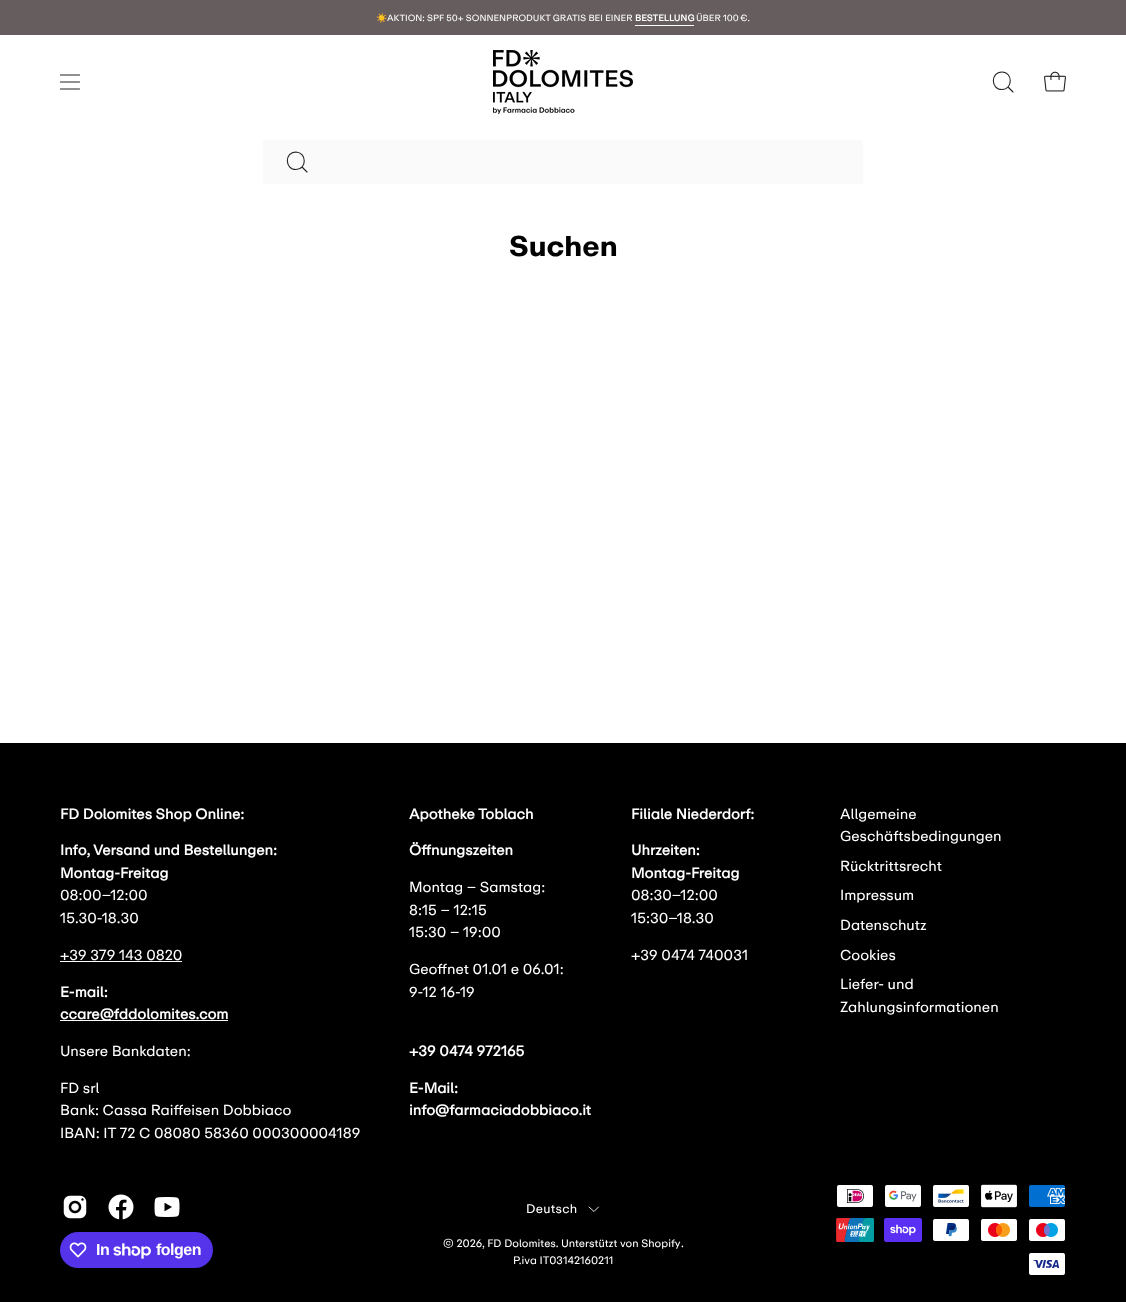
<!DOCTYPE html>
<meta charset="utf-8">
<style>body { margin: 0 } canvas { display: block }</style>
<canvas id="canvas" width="1126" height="1302"></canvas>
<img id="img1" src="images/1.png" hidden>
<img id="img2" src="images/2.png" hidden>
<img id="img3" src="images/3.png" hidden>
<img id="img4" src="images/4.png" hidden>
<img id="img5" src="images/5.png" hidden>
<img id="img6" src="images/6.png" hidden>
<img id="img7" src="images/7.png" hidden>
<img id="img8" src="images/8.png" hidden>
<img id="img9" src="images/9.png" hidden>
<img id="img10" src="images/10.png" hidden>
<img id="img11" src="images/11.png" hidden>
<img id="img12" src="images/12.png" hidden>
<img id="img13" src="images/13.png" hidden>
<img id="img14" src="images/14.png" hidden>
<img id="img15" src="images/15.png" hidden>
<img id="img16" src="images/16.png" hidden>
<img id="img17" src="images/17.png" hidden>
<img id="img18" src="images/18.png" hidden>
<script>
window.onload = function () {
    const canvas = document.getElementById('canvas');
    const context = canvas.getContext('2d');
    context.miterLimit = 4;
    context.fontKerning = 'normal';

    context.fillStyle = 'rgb(255, 255, 255)';
    context.fillRect(0, 0, 1126, 1302);
    context.fillStyle = 'rgb(102, 94, 94)';
    context.fillRect(0, 0, 1126, 35);
    context.fillStyle = 'rgb(255, 255, 255)';
    context.fillRect(635, 25, 59, 1);
    context.beginPath();
    context.moveTo(60.5, 82);
    context.lineTo(79.5, 82);
    context.moveTo(60.5, 75);
    context.lineTo(79.5, 75);
    context.moveTo(60.5, 89);
    context.lineTo(79.5, 89);
    context.strokeStyle = 'rgb(34, 34, 34)';
    context.lineWidth = 1.2;
    context.lineCap = 'round';
    context.lineJoin = 'round';
    context.stroke();
    context.drawImage(document.getElementById('img1'), 493, 50, 140, 64);
    context.beginPath();
    context.moveTo(1002, 89.5);
    context.bezierCurveTo(1013, 89.5, 1013, 72, 1002, 72);
    context.bezierCurveTo(990.5, 72, 990.5, 89.5, 1002, 89.5);
    context.closePath();
    context.moveTo(1008, 87);
    context.lineTo(1013, 92);
    context.lineWidth = 1.1;
    context.stroke();
    context.drawImage(document.getElementById('img2'), 1044, 71, 22, 21);
    context.fillStyle = 'rgb(250, 250, 250)';
    context.fillRect(263, 140, 600, 44);
    context.beginPath();
    context.moveTo(296, 169.5);
    context.bezierCurveTo(307, 169.5, 307, 152.5, 296, 152);
    context.bezierCurveTo(284.5, 152, 284.5, 169.5, 296, 169.5);
    context.closePath();
    context.moveTo(302, 167);
    context.lineTo(307, 172);
    context.stroke();
    context.fillStyle = 'rgb(0, 0, 0)';
    context.fillRect(0, 743, 1126, 559);
    context.fillStyle = 'rgb(255, 255, 255)';
    context.fillRect(60, 961, 122, 1);
    context.fillRect(60, 1020, 168, 1);
    context.drawImage(document.getElementById('img3'), 63, 1195, 24, 24);
    context.drawImage(document.getElementById('img4'), 108, 1194, 26, 26);
    context.drawImage(document.getElementById('img5'), 154, 1197, 26, 20);
    context.fillStyle = 'rgb(84, 51, 235)';
    context.beginPath();
    context.roundRect(60, 1232, 153, 36, 18);
    context.fill();
    context.drawImage(document.getElementById('img6'), 69, 1242, 18, 16);
    context.drawImage(document.getElementById('img7'), 113, 1243, 38, 16);
    context.beginPath();
    context.moveTo(598.5, 1207);
    context.lineTo(594, 1211.5);
    context.lineTo(589, 1207);
    context.strokeStyle = 'rgb(255, 255, 255)';
    context.lineWidth = 0.9;
    context.stroke();
    context.drawImage(document.getElementById('img8'), 837, 1185, 36, 22);
    context.drawImage(document.getElementById('img9'), 885, 1185, 36, 22);
    context.drawImage(document.getElementById('img10'), 933, 1185, 36, 22);
    context.drawImage(document.getElementById('img11'), 981, 1184, 36, 24);
    context.drawImage(document.getElementById('img12'), 1029, 1185, 36, 22);
    context.drawImage(document.getElementById('img13'), 836, 1218, 38, 24);
    context.drawImage(document.getElementById('img14'), 884, 1218, 38, 24);
    context.drawImage(document.getElementById('img15'), 933, 1219, 36, 22);
    context.drawImage(document.getElementById('img16'), 981, 1219, 36, 22);
    context.drawImage(document.getElementById('img17'), 1029, 1219, 36, 22);
    context.drawImage(document.getElementById('img18'), 1029, 1253, 36, 22);
    context.font = 'bold 9px Noto Color Emoji';
    context.fillStyle = 'rgb(255, 255, 255)';
    context.fillText('☀️', 376, 21);
    context.font = '9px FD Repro';
    context.fillText('AKTION: SPF 50+ SONNENPRODUKT GRATIS BEI EINER', 387, 21);
    context.font = 'bold 9px "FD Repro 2"';
    context.fillText('BESTELLUNG', 635, 21);
    context.font = '9px FD Repro';
    context.fillText('ÜBER 100 €.', 696, 21);
    context.font = 'bold 28.5px FD Repro';
    context.fillStyle = 'rgb(0, 0, 0)';
    context.fillText('Suchen', 509, 256);
    context.font = 'bold 14.4px "FD Repro 2"';
    context.fillStyle = 'rgb(255, 255, 255)';
    context.fillText('FD Dolomites Shop Online:', 60, 819);
    context.fillText('Info, Versand und Bestellungen:', 60, 855);
    context.fillText('Montag-Freitag', 60, 878);
    context.font = '14.4px FD Repro';
    context.fillText('08:00–12:00', 60, 900);
    context.fillText('15.30-18.30', 60, 923);
    context.fillText('+39 379 143 0820', 60, 960);
    context.font = 'bold 14.4px "FD Repro 2"';
    context.fillText('E-mail:', 60, 997);
    context.fillText('ccare@fddolomites.com', 60, 1019);
    context.font = '14.4px FD Repro';
    context.fillText('Unsere Bankdaten:', 60, 1056);
    context.fillText('FD srl', 60, 1093);
    context.fillText('Bank: Cassa Raiffeisen Dobbiaco', 60, 1115);
    context.fillText('IBAN: IT 72 C 08080 58360 000300004189', 60, 1138);
    context.font = 'bold 14.4px "FD Repro 2"';
    context.fillText('Apotheke Toblach', 409, 819);
    context.fillText('Öffnungszeiten', 409, 855);
    context.font = '14.4px FD Repro';
    context.fillText('Montag – Samstag:', 409, 892);
    context.fillText('8:15 – 12:15', 409, 915);
    context.fillText('15:30 – 19:00', 409, 937);
    context.fillText('Geoffnet 01.01 e 06.01:', 409, 974);
    context.fillText('9-12 16-19', 409, 997);
    context.font = 'bold 14.4px "FD Repro 2"';
    context.fillText('+39 0474 972165', 409, 1056);
    context.fillText('E-Mail:', 409, 1093);
    context.fillText('info@farmaciadobbiaco.it', 409, 1115);
    context.fillText('Filiale Niederdorf:', 631, 819);
    context.fillText('Uhrzeiten:', 631, 855);
    context.fillText('Montag-Freitag', 631, 878);
    context.font = '14.4px FD Repro';
    context.fillText('08:30–12:00', 631, 900);
    context.fillText('15:30–18.30', 631, 923);
    context.fillText('+39 0474 740031', 631, 960);
    context.fillText('Allgemeine', 840, 819);
    context.fillText('Geschäftsbedingungen', 840, 841);
    context.fillText('Rücktrittsrecht', 840, 871);
    context.fillText('Impressum', 840, 900);
    context.fillText('Datenschutz', 840, 930);
    context.fillText('Cookies', 840, 960);
    context.fillText('Liefer- und', 840, 989);
    context.fillText('Zahlungsinformationen', 840, 1012);
    context.letterSpacing = '-0.5px';
    context.font = 'bold 16px Liberation Sans';
    context.fillText('In', 96, 1255);
    context.fillText('folgen', 156, 1255);
    context.letterSpacing = '0.25px';
    context.font = '12.5px FD Repro';
    context.fillText('Deutsch', 526, 1213);
    context.letterSpacing = '0px';
    context.font = '10.75px FD Repro';
    context.fillText('© 2026, FD Dolomites.', 443, 1247);
    context.fillText('Unterstützt von Shopify', 561, 1247);
    context.fillText('.', 681, 1247);
    context.fillText('P.iva IT03142160211', 513, 1264);
};
</script>
